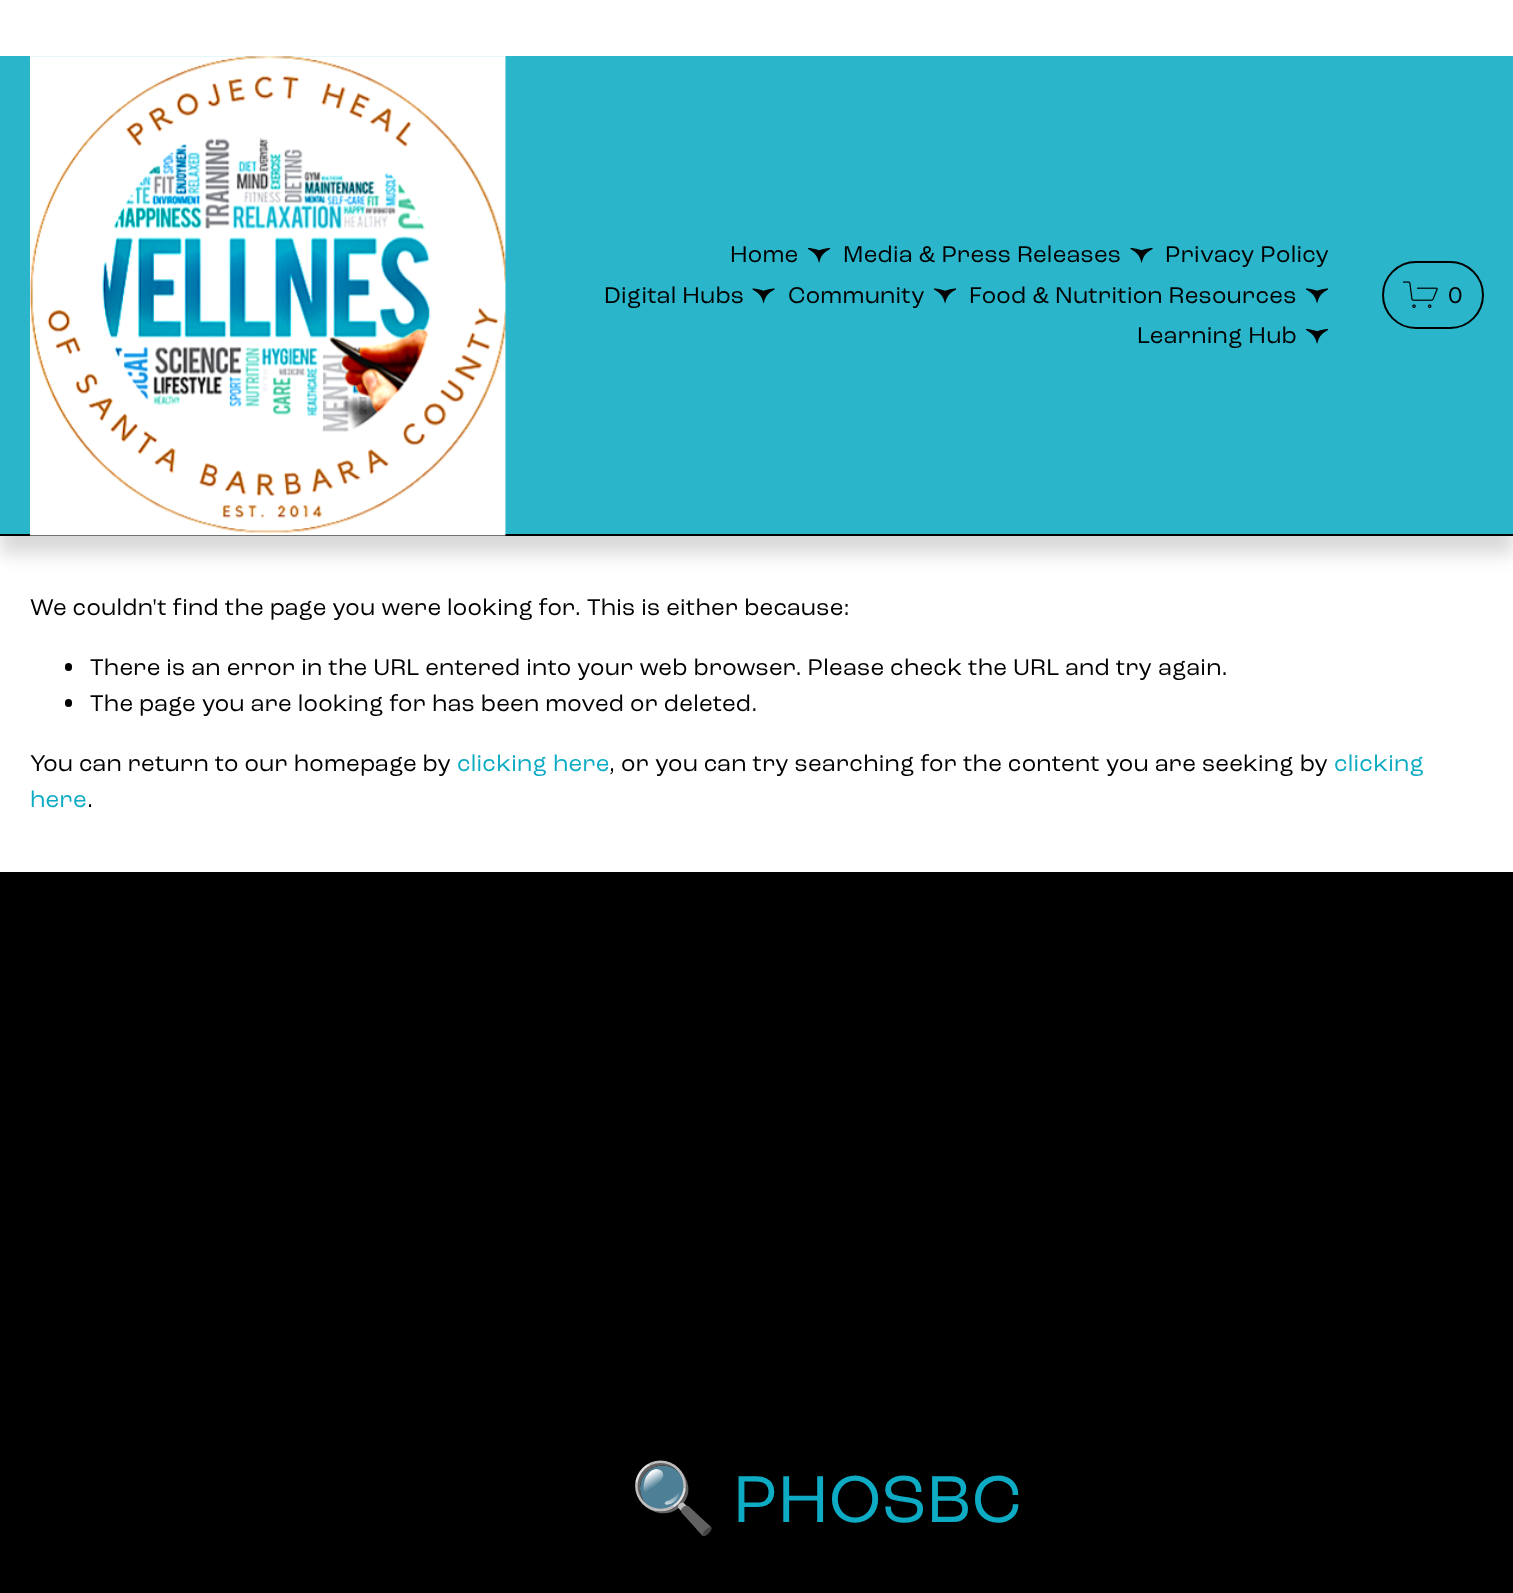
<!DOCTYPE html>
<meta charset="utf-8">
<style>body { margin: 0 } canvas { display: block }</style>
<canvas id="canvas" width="1513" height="1593"></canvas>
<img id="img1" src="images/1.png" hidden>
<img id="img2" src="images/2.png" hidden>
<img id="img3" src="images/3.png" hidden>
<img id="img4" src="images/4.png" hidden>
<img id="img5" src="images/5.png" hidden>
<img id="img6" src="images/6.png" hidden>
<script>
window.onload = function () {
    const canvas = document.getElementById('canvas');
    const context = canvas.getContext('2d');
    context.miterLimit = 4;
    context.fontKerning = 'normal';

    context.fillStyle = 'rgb(255, 255, 255)';
    context.fillRect(0, 0, 1513, 1593);
    context.save();
    context.beginPath();
    context.rect(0, 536, 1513, 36);
    context.clip();
    context.fillStyle = 'rgb(217, 217, 217)';
    context.filter = 'blur(9px)';
    context.beginPath();
    context.rect(0, 74, 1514, 480);
    context.fill();
    context.filter = 'none';
    context.restore();
    context.fillStyle = 'rgba(13, 171, 196, 0.88)';
    context.fillRect(0, 56, 1513, 478);
    context.fillStyle = 'rgb(0, 0, 0)';
    context.fillRect(0, 534, 1513, 2);
    context.drawImage(document.getElementById('img1'), 30, 56, 476, 480);
    context.drawImage(document.getElementById('img2'), 807, 247, 24, 16);
    context.drawImage(document.getElementById('img3'), 1130, 247, 23, 16);
    context.drawImage(document.getElementById('img4'), 752, 288, 23, 16);
    context.drawImage(document.getElementById('img5'), 933, 288, 24, 16);
    context.drawImage(document.getElementById('img5'), 1305, 288, 24, 16);
    context.drawImage(document.getElementById('img2'), 1305, 328, 24, 16);
    context.beginPath();
    context.roundRect(1383, 262, 100, 66, 33);
    context.strokeStyle = 'rgb(0, 0, 0)';
    context.lineWidth = 2;
    context.stroke();
    context.drawImage(document.getElementById('img6'), 1403, 281, 35, 27);
    context.beginPath();
    context.roundRect(65, 663, 7, 8, 3.5);
    context.fill();
    context.beginPath();
    context.roundRect(65, 699, 7, 8, 3.5);
    context.fill();
    context.fillRect(0, 872, 1513, 721);
    context.letterSpacing = '0.25px';
    context.font = '24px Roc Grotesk';
    context.fillText('Home', 730, 262);
    context.fillText('Media & Press Releases', 843, 262);
    context.fillText('Privacy Policy', 1165, 262);
    context.fillText('Digital Hubs', 604, 303);
    context.fillText('Community', 788, 303);
    context.fillText('Food & Nutrition Resources', 969, 303);
    context.fillText('Learning Hub', 1137, 343);
    context.fillText('0', 1448, 303);
    context.fillText('We couldn\'t find the page you were looking for. This is either because:', 30, 615);
    context.fillText('There is an error in the URL entered into your web browser. Please check the URL and try again.', 90, 675);
    context.fillText('The page you are looking for has been moved or deleted.', 90, 711);
    context.fillText('You can return to our homepage by', 30, 771);
    context.fillStyle = 'rgb(13, 171, 196)';
    context.fillText('clicking here', 457, 771);
    context.fillStyle = 'rgb(0, 0, 0)';
    context.fillText(', or you can try searching for the content you are seeking by', 609, 771);
    context.fillStyle = 'rgb(13, 171, 196)';
    context.fillText('clicking', 1334, 771);
    context.fillText('here', 30, 807);
    context.fillStyle = 'rgb(0, 0, 0)';
    context.fillText('.', 87, 807);
    context.letterSpacing = '0px';
    context.font = '69.5px Noto Color Emoji';
    context.fillStyle = 'rgb(13, 171, 196)';
    context.fillText('🔍', 630, 1522);
    context.font = '69.5px Roc Grotesk';
    context.fillText('PHOSBC', 733, 1522);
};
</script>
